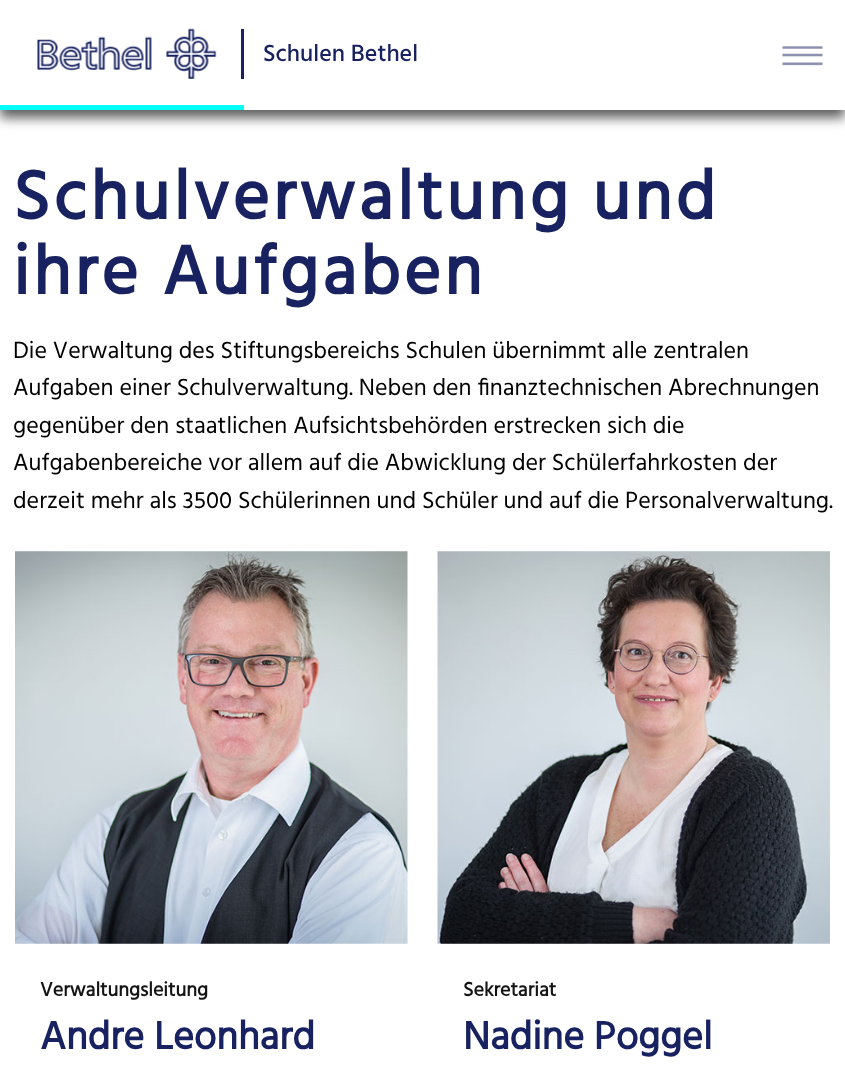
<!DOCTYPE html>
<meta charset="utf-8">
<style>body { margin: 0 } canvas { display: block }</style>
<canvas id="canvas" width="845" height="1074"></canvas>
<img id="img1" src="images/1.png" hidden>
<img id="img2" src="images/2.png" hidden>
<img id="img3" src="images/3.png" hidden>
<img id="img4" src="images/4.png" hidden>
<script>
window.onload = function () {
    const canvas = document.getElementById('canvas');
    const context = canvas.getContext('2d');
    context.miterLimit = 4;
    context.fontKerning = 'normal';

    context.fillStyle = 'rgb(255, 255, 255)';
    context.fillRect(0, 0, 845, 1074);
    context.fillStyle = 'rgb(96, 96, 96)';
    context.filter = 'blur(6px)';
    context.beginPath();
    context.rect(0, 8, 845, 110);
    context.fill();
    context.filter = 'none';
    context.fillStyle = 'rgb(255, 255, 255)';
    context.fillRect(0, 0, 845, 110);
    context.drawImage(document.getElementById('img1'), 37, 28, 180, 51);
    context.fillStyle = 'rgb(24, 34, 96)';
    context.fillRect(241, 29, 3, 50);
    context.fillStyle = 'rgb(0, 255, 255)';
    context.fillRect(0, 105, 244, 5);
    context.drawImage(document.getElementById('img2'), 782, 46, 41, 20);
    context.drawImage(document.getElementById('img3'), 15, 551, 393, 393);
    context.drawImage(document.getElementById('img4'), 437, 551, 393, 393);
    context.font = '500 24px Hind';
    context.fillStyle = 'rgb(24, 34, 96)';
    context.fillText('Schulen Bethel', 263, 61);
    context.letterSpacing = '3.75px';
    context.font = 'bold 70px Hind';
    context.fillText('Schulverwaltung und', 13, 219);
    context.fillText('ihre Aufgaben', 13, 294);
    context.letterSpacing = '0px';
    context.font = '24px Hind';
    context.fillStyle = 'rgb(0, 0, 0)';
    context.fillText('Die Verwaltung des Stiftungsbereichs Schulen übernimmt alle zentralen', 13, 358);
    context.fillText('Aufgaben einer Schulverwaltung. Neben den finanztechnischen Abrechnungen', 13, 395);
    context.fillText('gegenüber den staatlichen Aufsichtsbehörden erstrecken sich die', 13, 433);
    context.fillText('Aufgabenbereiche vor allem auf die Abwicklung der Schülerfahrkosten der', 13, 470);
    context.fillText('derzeit mehr als 3500 Schülerinnen und Schüler und auf die Personalverwaltung.', 13, 508);
    context.font = 'bold 20px Hind';
    context.fillStyle = 'rgb(20, 20, 20)';
    context.fillText('Verwaltungsleitung', 40, 996);
    context.font = 'bold 40px Hind';
    context.fillStyle = 'rgb(24, 34, 96)';
    context.fillText('Andre Leonhard', 40, 1049);
    context.font = 'bold 20px Hind';
    context.fillStyle = 'rgb(20, 20, 20)';
    context.fillText('Sekretariat', 463, 996);
    context.font = 'bold 40px Hind';
    context.fillStyle = 'rgb(24, 34, 96)';
    context.fillText('Nadine Poggel', 463, 1049);
};
</script>
